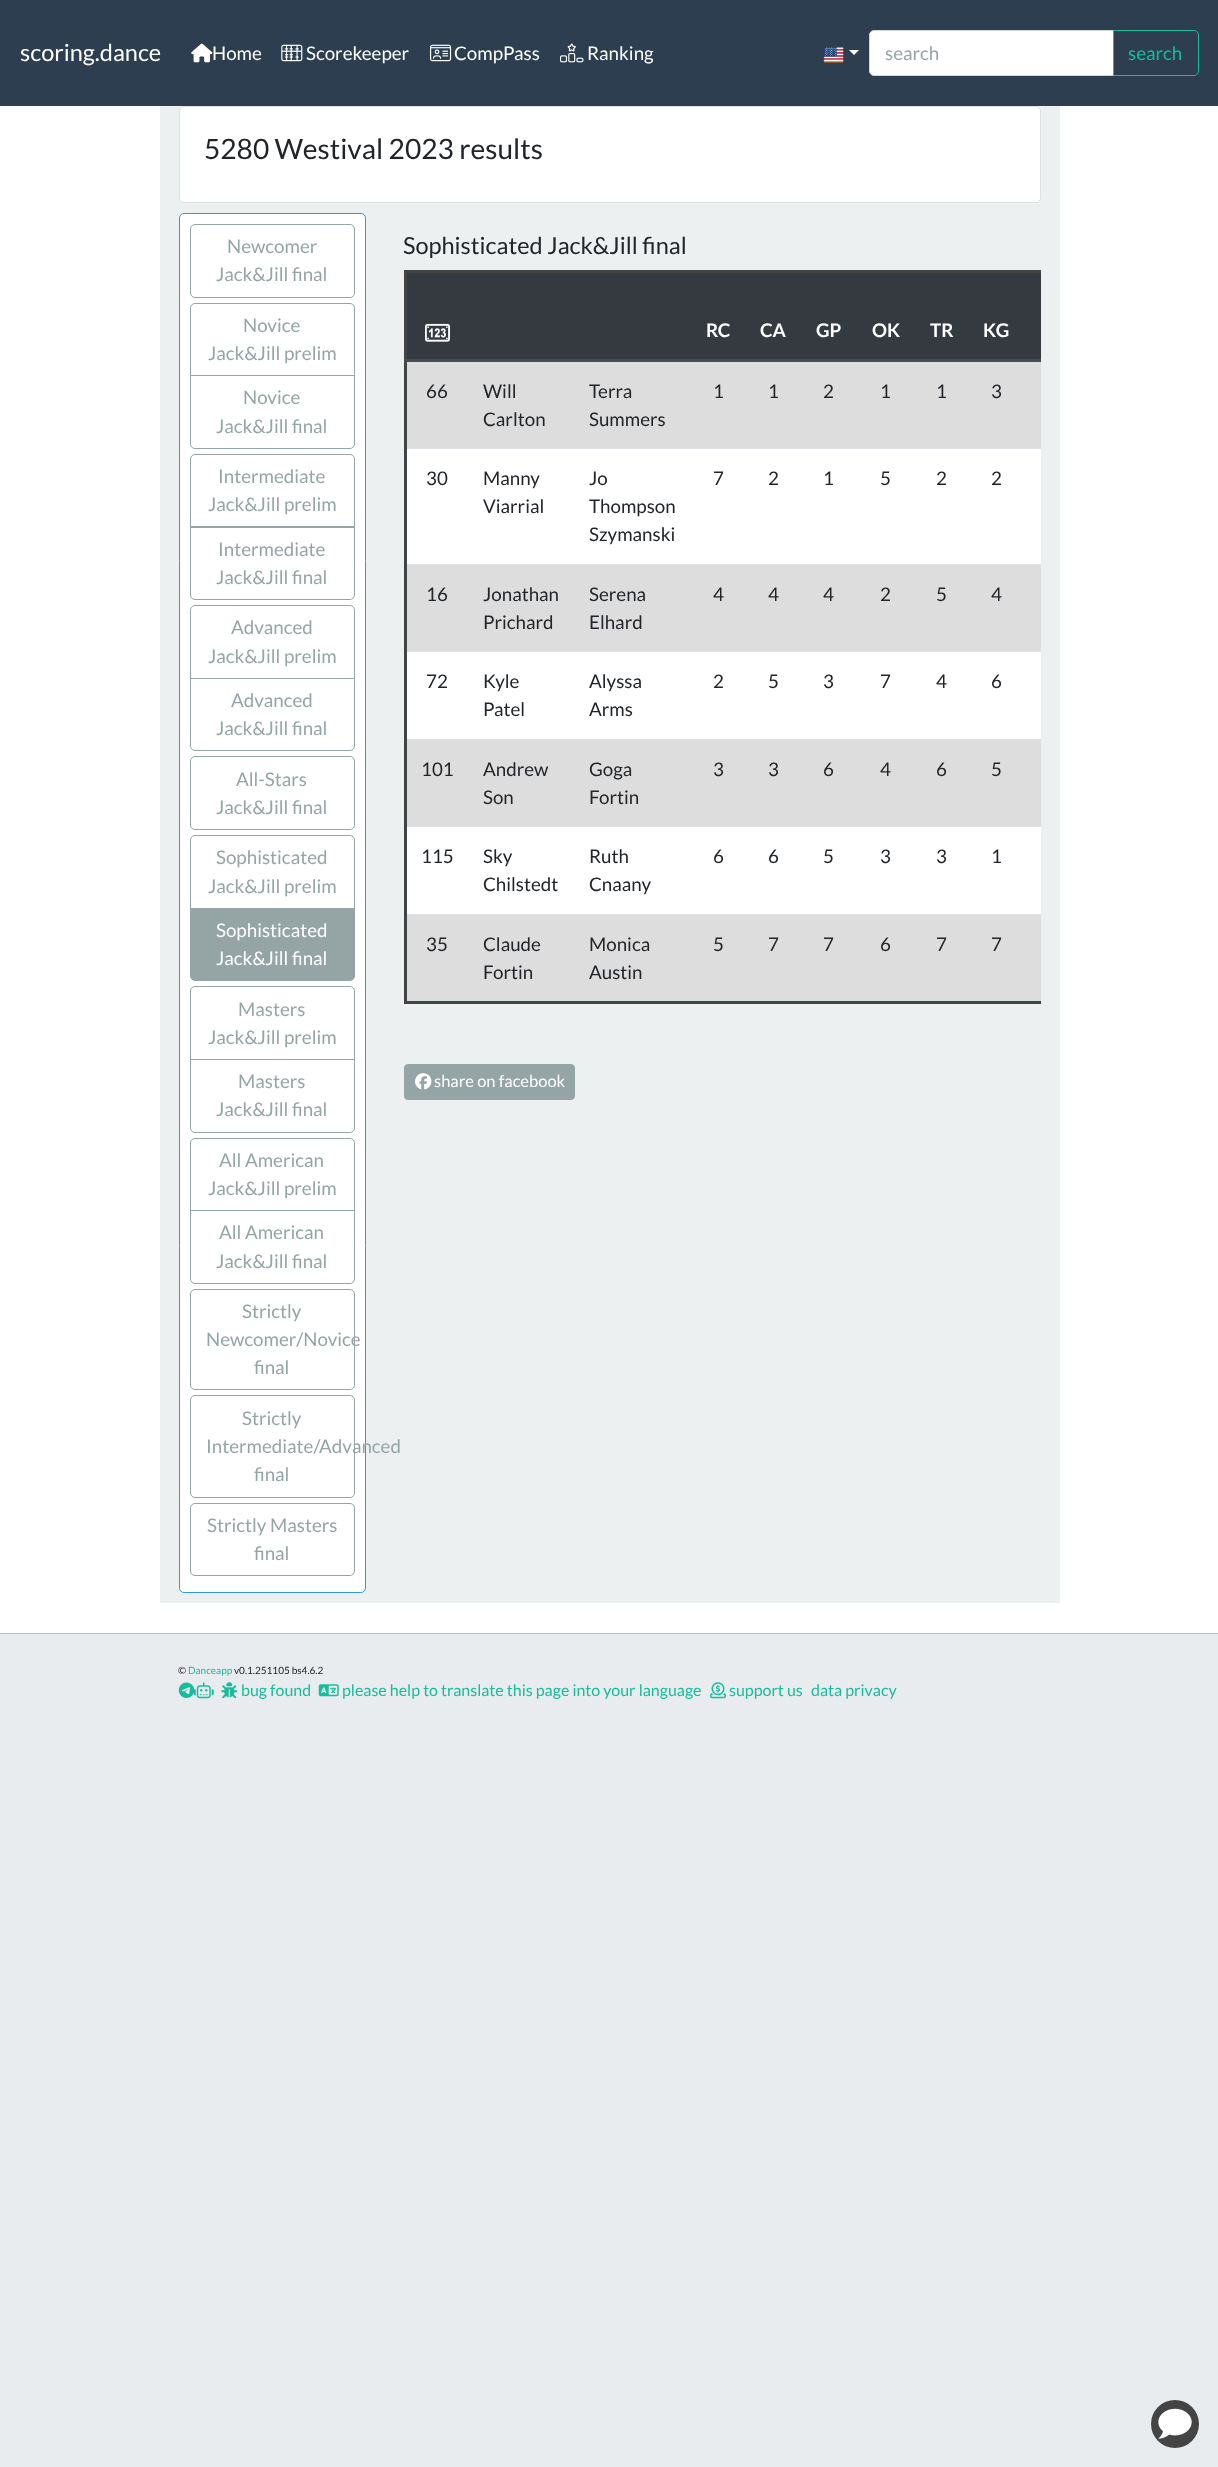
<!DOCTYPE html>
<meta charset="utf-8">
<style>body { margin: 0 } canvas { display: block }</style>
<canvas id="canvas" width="1218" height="2467"></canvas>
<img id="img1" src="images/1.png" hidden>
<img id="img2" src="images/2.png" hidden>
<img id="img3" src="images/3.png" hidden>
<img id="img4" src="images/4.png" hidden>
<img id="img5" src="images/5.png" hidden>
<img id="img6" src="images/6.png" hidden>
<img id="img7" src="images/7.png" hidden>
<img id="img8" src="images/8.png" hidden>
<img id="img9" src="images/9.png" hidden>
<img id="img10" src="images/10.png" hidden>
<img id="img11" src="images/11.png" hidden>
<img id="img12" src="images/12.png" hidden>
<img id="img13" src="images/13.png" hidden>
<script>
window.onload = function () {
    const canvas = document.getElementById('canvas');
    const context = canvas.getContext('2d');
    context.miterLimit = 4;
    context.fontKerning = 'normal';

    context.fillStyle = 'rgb(233, 236, 239)';
    context.fillRect(0, 0, 1218, 2467);
    context.fillStyle = 'rgb(44, 62, 80)';
    context.fillRect(0, 0, 1218, 106);
    context.drawImage(document.getElementById('img1'), 191, 43, 22, 20);
    context.drawImage(document.getElementById('img2'), 281, 44, 22, 18);
    context.drawImage(document.getElementById('img3'), 430, 44, 22, 18);
    context.drawImage(document.getElementById('img4'), 560, 43, 24, 20);
    context.drawImage(document.getElementById('img5'), 823, 47, 21, 16);
    context.fillStyle = 'rgb(255, 255, 255)';
    context.beginPath();
    context.moveTo(849, 50);
    context.lineTo(859, 50);
    context.lineTo(854, 55);
    context.closePath();
    context.fill();
    context.beginPath();
    context.roundRect(869.5, 30.5, 244, 45, [4.5, 0, 0, 4.5]);
    context.fill();
    context.strokeStyle = 'rgb(206, 212, 218)';
    context.stroke();
    context.beginPath();
    context.roundRect(1113.5, 30.5, 85, 45, [0, 4.5, 4.5, 0]);
    context.strokeStyle = 'rgb(24, 188, 156)';
    context.stroke();
    context.fillRect(0, 106, 1218, 1527);
    context.fillStyle = 'rgb(236, 240, 241)';
    context.fillRect(160, 106, 900, 1497);
    context.fillStyle = 'rgb(255, 255, 255)';
    context.beginPath();
    context.roundRect(179, 106, 862, 97, 5);
    context.fill();
    context.beginPath();
    context.roundRect(179.5, 106.5, 861, 96, 4.5);
    context.strokeStyle = 'rgba(0, 0, 0, 0.12)';
    context.stroke();
    context.beginPath();
    context.roundRect(179.5, 213.5, 186, 1379, 4.5);
    context.fill();
    context.strokeStyle = 'rgb(52, 152, 219)';
    context.stroke();
    context.beginPath();
    context.roundRect(190.5, 224.5, 164, 73, 4.5);
    context.strokeStyle = 'rgb(149, 165, 166)';
    context.stroke();
    context.beginPath();
    context.roundRect(190.5, 303.5, 164, 72, [4.5, 4.5, 0, 0]);
    context.stroke();
    context.beginPath();
    context.roundRect(190.5, 375.5, 164, 73, [0, 0, 4.5, 4.5]);
    context.stroke();
    context.beginPath();
    context.roundRect(190.5, 454.5, 164, 73, [4.5, 4.5, 0, 0]);
    context.stroke();
    context.beginPath();
    context.roundRect(190.5, 526.5, 164, 73, [0, 0, 4.5, 4.5]);
    context.stroke();
    context.beginPath();
    context.roundRect(190.5, 605.5, 164, 73, [4.5, 4.5, 0, 0]);
    context.stroke();
    context.beginPath();
    context.roundRect(190.5, 678.5, 164, 72, [0, 0, 4.5, 4.5]);
    context.stroke();
    context.beginPath();
    context.roundRect(190.5, 756.5, 164, 73, 4.5);
    context.stroke();
    context.beginPath();
    context.roundRect(190.5, 835.5, 164, 73, [4.5, 4.5, 0, 0]);
    context.stroke();
    context.fillStyle = 'rgb(149, 165, 166)';
    context.beginPath();
    context.roundRect(190.5, 908.5, 164, 72, [0, 0, 4.5, 4.5]);
    context.fill();
    context.stroke();
    context.beginPath();
    context.roundRect(190.5, 986.5, 164, 73, [4.5, 4.5, 0, 0]);
    context.stroke();
    context.beginPath();
    context.roundRect(190.5, 1059.5, 164, 73, [0, 0, 4.5, 4.5]);
    context.stroke();
    context.beginPath();
    context.roundRect(190.5, 1138.5, 164, 72, [4.5, 4.5, 0, 0]);
    context.stroke();
    context.beginPath();
    context.roundRect(190.5, 1210.5, 164, 73, [0, 0, 4.5, 4.5]);
    context.stroke();
    context.beginPath();
    context.roundRect(190.5, 1289.5, 164, 100, 4.5);
    context.stroke();
    context.beginPath();
    context.roundRect(190.5, 1395.5, 164, 102, 4.5);
    context.stroke();
    context.beginPath();
    context.roundRect(190.5, 1503.5, 164, 72, 4.5);
    context.stroke();
    context.fillStyle = 'rgb(68, 68, 68)';
    context.fillRect(404, 270, 637, 3);
    context.fillRect(404, 1001, 637, 3);
    context.fillStyle = 'rgb(222, 226, 230)';
    context.fillRect(404, 448, 637, 1);
    context.fillRect(404, 564, 637, 1);
    context.fillRect(404, 651, 637, 1);
    context.fillRect(404, 739, 637, 1);
    context.fillRect(404, 826, 637, 1);
    context.fillRect(404, 914, 637, 1);
    context.fillStyle = 'rgb(68, 68, 68)';
    context.fillRect(404, 270, 3, 734);
    context.fillStyle = 'rgb(52, 58, 64)';
    context.fillRect(407, 273, 634, 86);
    context.drawImage(document.getElementById('img6'), 425, 323, 25, 19);
    context.fillStyle = 'rgb(69, 77, 85)';
    context.fillRect(404, 359, 637, 3);
    context.fillStyle = 'rgb(221, 221, 221)';
    context.fillRect(407, 362, 634, 86);
    context.fillStyle = 'rgb(255, 255, 255)';
    context.fillRect(407, 449, 634, 115);
    context.fillStyle = 'rgb(221, 221, 221)';
    context.fillRect(407, 565, 634, 86);
    context.fillStyle = 'rgb(255, 255, 255)';
    context.fillRect(407, 652, 634, 87);
    context.fillStyle = 'rgb(221, 221, 221)';
    context.fillRect(407, 740, 634, 86);
    context.fillStyle = 'rgb(255, 255, 255)';
    context.fillRect(407, 827, 634, 87);
    context.fillStyle = 'rgb(221, 221, 221)';
    context.fillRect(407, 915, 634, 86);
    context.fillStyle = 'rgb(149, 165, 166)';
    context.beginPath();
    context.roundRect(404.5, 1064.5, 170, 35, 3.5);
    context.fill();
    context.stroke();
    context.drawImage(document.getElementById('img7'), 415, 1073, 17, 17);
    context.fillStyle = 'rgb(186, 189, 191)';
    context.fillRect(0, 1633, 1218, 1);
    context.drawImage(document.getElementById('img8'), 178, 1682, 17, 16);
    context.drawImage(document.getElementById('img9'), 193, 1682, 21, 17);
    context.drawImage(document.getElementById('img10'), 221, 1682, 17, 17);
    context.drawImage(document.getElementById('img11'), 318, 1684, 21, 13);
    context.drawImage(document.getElementById('img12'), 710, 1682, 16, 17);
    context.fillStyle = 'rgb(68, 68, 68)';
    context.beginPath();
    context.arc(1175, 2424, 24, 0, 2 * Math.PI);
    context.fill();
    context.drawImage(document.getElementById('img13'), 1158, 2408, 34, 31);
    context.font = '23.5px Lato';
    context.fillStyle = 'rgb(255, 255, 255)';
    context.fillText('scoring.dance', 20, 61);
    context.font = '18.75px Lato';
    context.fillText('Home', 212, 60);
    context.fillText('Scorekeeper', 306, 60);
    context.fillText('CompPass', 454, 60);
    context.fillText('Ranking', 587, 60);
    context.fillStyle = 'rgb(149, 165, 166)';
    context.fillText('search', 885, 60);
    context.fillStyle = 'rgb(24, 188, 156)';
    context.fillText('search', 1128, 60);
    context.font = '28.1px Lato';
    context.fillStyle = 'rgb(33, 37, 41)';
    context.fillText('5280 Westival 2023 results', 204, 159);
    context.font = '18.75px Lato';
    context.fillStyle = 'rgb(149, 165, 166)';
    context.fillText('Newcomer', 227, 253);
    context.fillText('Jack&Jill final', 216, 281);
    context.fillText('Novice', 243, 332);
    context.fillText('Jack&Jill prelim', 208, 360);
    context.fillText('Novice', 243, 404);
    context.fillText('Jack&Jill final', 216, 433);
    context.fillText('Intermediate', 218, 483);
    context.fillText('Jack&Jill prelim', 208, 511);
    context.fillText('Intermediate', 218, 556);
    context.fillText('Jack&Jill final', 216, 584);
    context.fillText('Advanced', 231, 634);
    context.fillText('Jack&Jill prelim', 208, 663);
    context.fillText('Advanced', 231, 707);
    context.fillText('Jack&Jill final', 216, 735);
    context.fillText('All-Stars', 236, 786);
    context.fillText('Jack&Jill final', 216, 814);
    context.fillText('Sophisticated', 216, 864);
    context.fillText('Jack&Jill prelim', 208, 893);
    context.fillStyle = 'rgb(255, 255, 255)';
    context.fillText('Sophisticated', 216, 937);
    context.fillText('Jack&Jill final', 216, 965);
    context.fillStyle = 'rgb(149, 165, 166)';
    context.fillText('Masters', 238, 1016);
    context.fillText('Jack&Jill prelim', 208, 1044);
    context.fillText('Masters', 238, 1088);
    context.fillText('Jack&Jill final', 216, 1116);
    context.fillText('All American', 219, 1167);
    context.fillText('Jack&Jill prelim', 208, 1195);
    context.fillText('All American', 219, 1239);
    context.fillText('Jack&Jill final', 216, 1268);
    context.fillText('Strictly', 242, 1318);
    context.fillText('Newcomer/Novice', 206, 1346);
    context.fillText('final', 254, 1374);
    context.fillText('Strictly', 242, 1425);
    context.fillText('Intermediate/Advanced', 206, 1453);
    context.fillText('final', 254, 1481);
    context.fillText('Strictly Masters', 207, 1532);
    context.fillText('final', 254, 1560);
    context.font = '23.5px Lato';
    context.fillStyle = 'rgb(33, 37, 41)';
    context.fillText('Sophisticated Jack&Jill final', 403, 254);
    context.font = 'bold 18.75px Lato';
    context.fillStyle = 'rgb(255, 255, 255)';
    context.fillText('RC', 706, 337);
    context.fillText('CA', 760, 337);
    context.fillText('GP', 816, 337);
    context.fillText('OK', 872, 337);
    context.fillText('TR', 930, 337);
    context.fillText('KG', 983, 337);
    context.font = '18.75px Lato';
    context.fillStyle = 'rgb(33, 37, 41)';
    context.fillText('66', 426, 398);
    context.fillText('Will', 483, 398);
    context.fillText('Carlton', 483, 426);
    context.fillText('Terra', 589, 398);
    context.fillText('Summers', 589, 426);
    context.fillText('1', 713, 398);
    context.fillText('1', 768, 398);
    context.fillText('2', 823, 398);
    context.fillText('1', 880, 398);
    context.fillText('1', 936, 398);
    context.fillText('3', 991, 398);
    context.fillText('30', 426, 485);
    context.fillText('Manny', 483, 485);
    context.fillText('Viarrial', 483, 513);
    context.fillText('Jo', 589, 485);
    context.fillText('Thompson', 589, 513);
    context.fillText('Szymanski', 589, 541);
    context.fillText('7', 713, 485);
    context.fillText('2', 768, 485);
    context.fillText('1', 823, 485);
    context.fillText('5', 880, 485);
    context.fillText('2', 936, 485);
    context.fillText('2', 991, 485);
    context.fillText('16', 426, 601);
    context.fillText('Jonathan', 483, 601);
    context.fillText('Prichard', 483, 629);
    context.fillText('Serena', 589, 601);
    context.fillText('Elhard', 589, 629);
    context.fillText('4', 713, 601);
    context.fillText('4', 768, 601);
    context.fillText('4', 823, 601);
    context.fillText('2', 880, 601);
    context.fillText('5', 936, 601);
    context.fillText('4', 991, 601);
    context.fillText('72', 426, 688);
    context.fillText('Kyle', 483, 688);
    context.fillText('Patel', 483, 716);
    context.fillText('Alyssa', 589, 688);
    context.fillText('Arms', 589, 716);
    context.fillText('2', 713, 688);
    context.fillText('5', 768, 688);
    context.fillText('3', 823, 688);
    context.fillText('7', 880, 688);
    context.fillText('4', 936, 688);
    context.fillText('6', 991, 688);
    context.fillText('101', 421, 776);
    context.fillText('Andrew', 483, 776);
    context.fillText('Son', 483, 804);
    context.fillText('Goga', 589, 776);
    context.fillText('Fortin', 589, 804);
    context.fillText('3', 713, 776);
    context.fillText('3', 768, 776);
    context.fillText('6', 823, 776);
    context.fillText('4', 880, 776);
    context.fillText('6', 936, 776);
    context.fillText('5', 991, 776);
    context.fillText('115', 421, 863);
    context.fillText('Sky', 483, 863);
    context.fillText('Chilstedt', 483, 891);
    context.fillText('Ruth', 589, 863);
    context.fillText('Cnaany', 589, 891);
    context.fillText('6', 713, 863);
    context.fillText('6', 768, 863);
    context.fillText('5', 823, 863);
    context.fillText('3', 880, 863);
    context.fillText('3', 936, 863);
    context.fillText('1', 991, 863);
    context.fillText('35', 426, 951);
    context.fillText('Claude', 483, 951);
    context.fillText('Fortin', 483, 979);
    context.fillText('Monica', 589, 951);
    context.fillText('Austin', 589, 979);
    context.fillText('5', 713, 951);
    context.fillText('7', 768, 951);
    context.fillText('7', 823, 951);
    context.fillText('6', 880, 951);
    context.fillText('7', 936, 951);
    context.fillText('7', 991, 951);
    context.font = '16.5px Lato';
    context.fillStyle = 'rgb(255, 255, 255)';
    context.fillText('share on facebook', 434, 1087);
    context.font = '10px Lato';
    context.fillStyle = 'rgb(33, 37, 41)';
    context.fillText('©', 178, 1674);
    context.fillStyle = 'rgb(24, 188, 156)';
    context.fillText('Danceapp', 188, 1674);
    context.fillStyle = 'rgb(33, 37, 41)';
    context.fillText('v0.1.251105 bs4.6.2', 234, 1674);
    context.font = '16px Lato';
    context.fillStyle = 'rgb(24, 188, 156)';
    context.fillText('bug found', 241, 1696);
    context.fillText('please help to translate this page into your language', 342, 1696);
    context.fillText('support us', 729, 1696);
    context.fillText('data privacy', 811, 1696);
};
</script>
